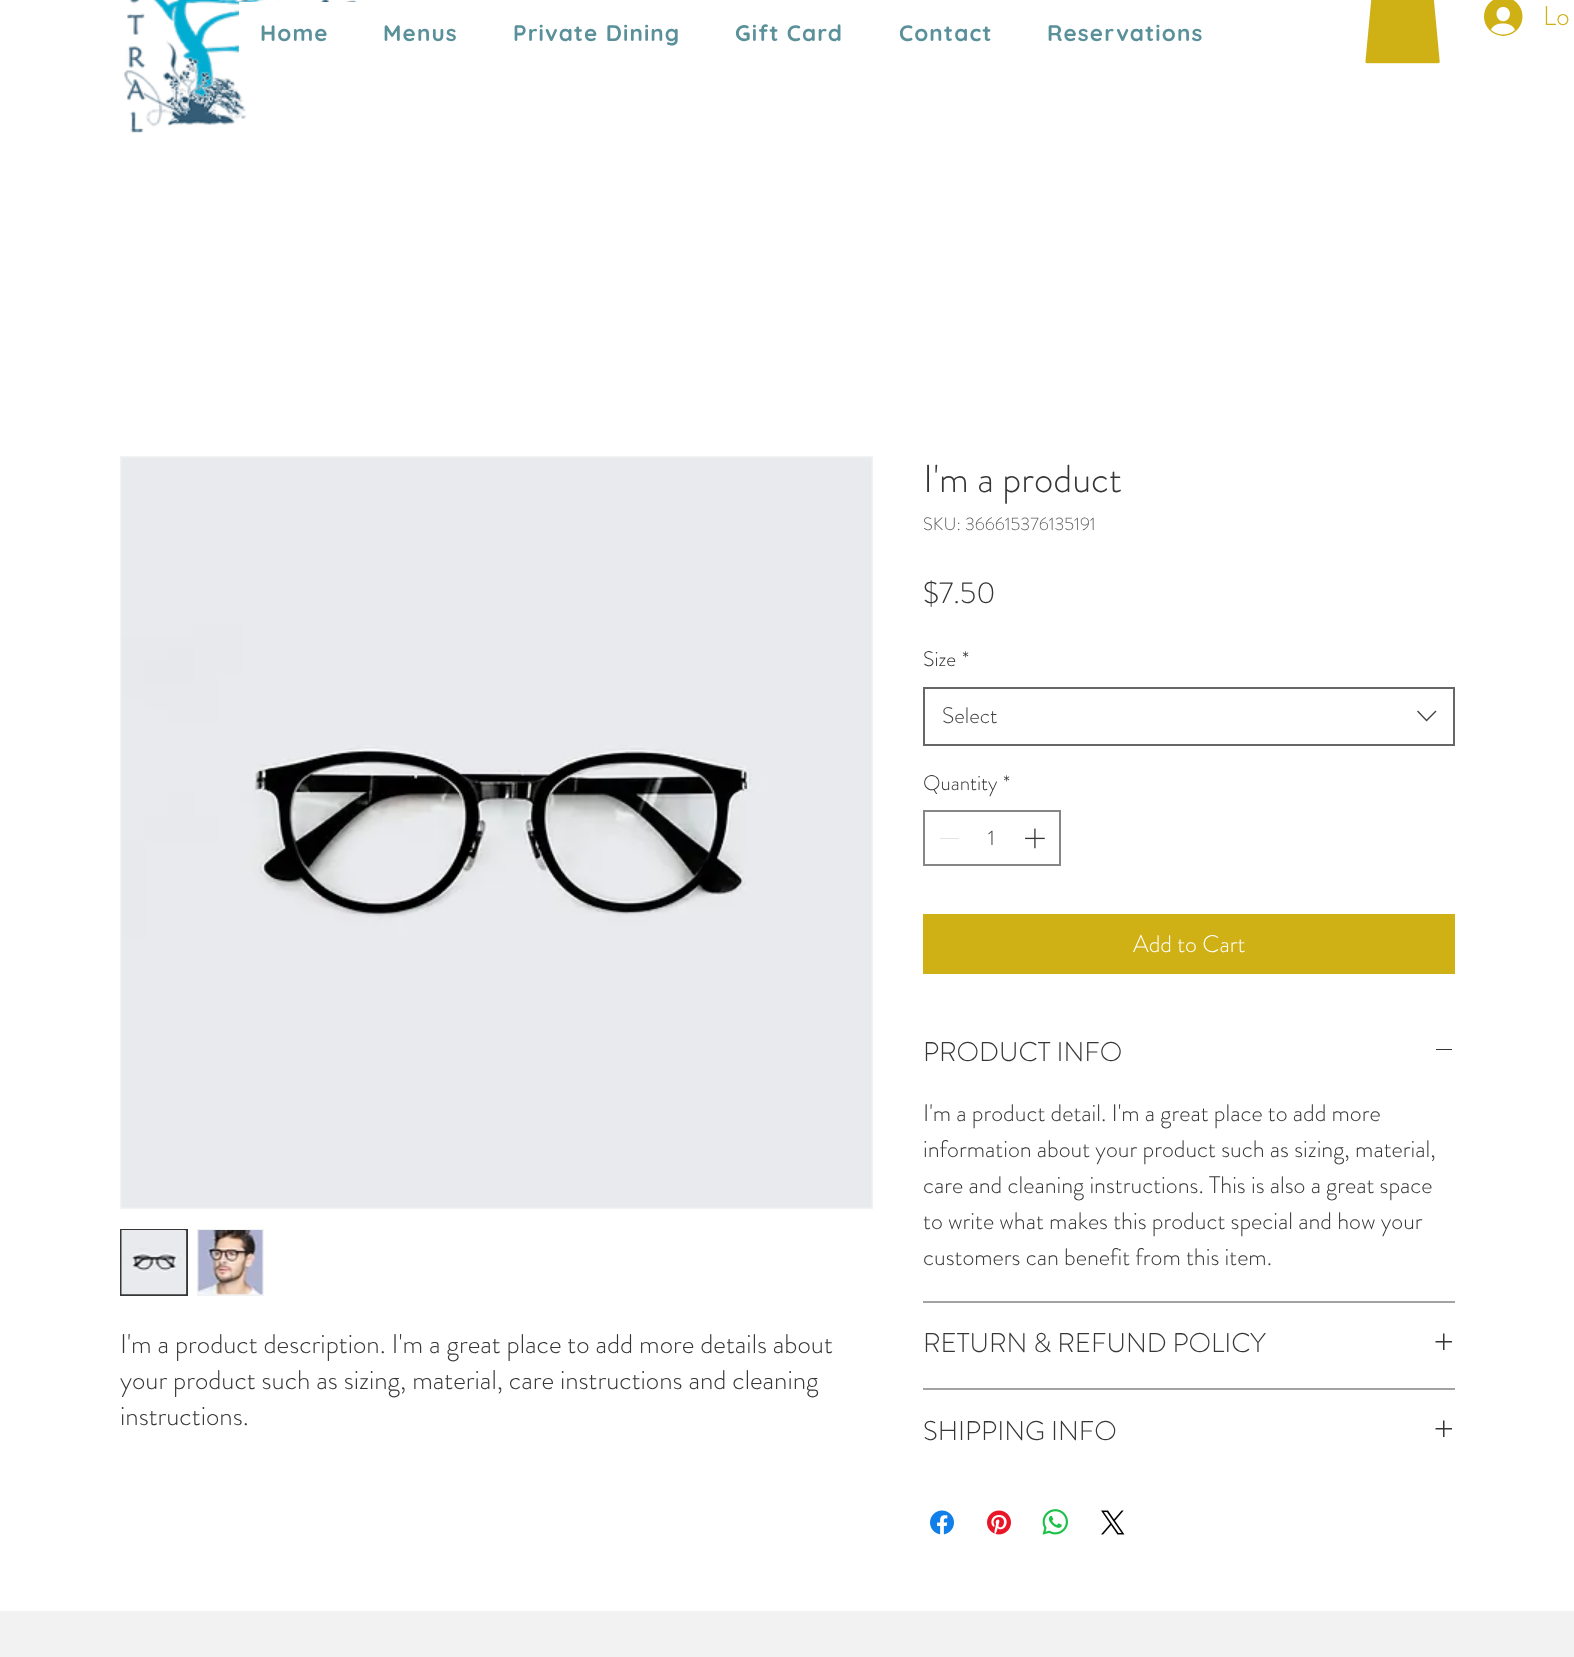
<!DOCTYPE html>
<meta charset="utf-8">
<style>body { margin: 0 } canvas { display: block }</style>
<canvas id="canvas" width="1574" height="1657"></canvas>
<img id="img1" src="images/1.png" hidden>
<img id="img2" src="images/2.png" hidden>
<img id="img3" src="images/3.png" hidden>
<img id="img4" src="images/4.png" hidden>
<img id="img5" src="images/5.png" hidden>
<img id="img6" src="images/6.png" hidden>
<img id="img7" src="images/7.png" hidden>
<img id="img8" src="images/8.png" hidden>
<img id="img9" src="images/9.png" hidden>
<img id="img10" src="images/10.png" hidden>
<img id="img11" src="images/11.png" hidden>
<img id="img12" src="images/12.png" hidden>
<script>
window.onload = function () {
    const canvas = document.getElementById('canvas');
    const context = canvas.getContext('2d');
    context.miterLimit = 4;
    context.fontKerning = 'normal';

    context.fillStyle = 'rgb(255, 255, 255)';
    context.fillRect(0, 0, 1574, 1657);
    context.drawImage(document.getElementById('img1'), 124, 0, 233, 133);
    context.drawImage(document.getElementById('img2'), 1365, 0, 75, 64);
    context.drawImage(document.getElementById('img3'), 1484, 0, 39, 36);
    context.fillRect(239, 2, 118, 53);
    context.strokeStyle = 'rgb(242, 242, 242)';
    context.lineWidth = 2;
    context.strokeRect(121, 457, 751, 751);
    context.drawImage(document.getElementById('img4'), 121, 457, 751, 751);
    context.fillStyle = 'rgb(242, 242, 242)';
    context.fillRect(185, 1231, 1, 63);
    context.strokeStyle = 'rgb(54, 54, 54)';
    context.strokeRect(121, 1230, 66, 65);
    context.drawImage(document.getElementById('img5'), 121, 1230, 66, 65);
    context.fillRect(197, 1229, 67, 67);
    context.drawImage(document.getElementById('img6'), 197, 1230, 66, 65);
    context.strokeStyle = 'rgb(102, 102, 102)';
    context.strokeRect(924, 688, 530, 57);
    context.fillStyle = 'rgb(68, 68, 68)';
    context.beginPath();
    context.moveTo(1435.5, 710.5);
    context.lineTo(1436.5, 711.5);
    context.lineTo(1426.5, 721.5);
    context.lineTo(1417, 711.5);
    context.lineTo(1418, 710.5);
    context.lineTo(1426.5, 719.5);
    context.closePath();
    context.fill('evenodd');
    context.strokeStyle = 'rgb(134, 134, 134)';
    context.strokeRect(924, 811, 136, 54);
    context.fillStyle = 'rgb(227, 227, 227)';
    context.fillRect(940, 838, 19, 1);
    context.drawImage(document.getElementById('img7'), 1025, 828, 20, 21);
    context.fillStyle = 'rgb(207, 176, 21)';
    context.fillRect(923, 914, 532, 60);
    context.fillStyle = 'rgb(163, 163, 163)';
    context.fillRect(923, 1301, 532, 2);
    context.fillStyle = 'rgb(54, 54, 54)';
    context.fillRect(1436, 1049, 16, 1);
    context.fillStyle = 'rgb(163, 163, 163)';
    context.fillRect(923, 1388, 532, 2);
    context.drawImage(document.getElementById('img8'), 1435, 1333, 17, 17);
    context.drawImage(document.getElementById('img8'), 1435, 1420, 17, 17);
    context.drawImage(document.getElementById('img9'), 930, 1510, 24, 25);
    context.drawImage(document.getElementById('img10'), 987, 1510, 24, 25);
    context.drawImage(document.getElementById('img11'), 1042, 1509, 26, 26);
    context.drawImage(document.getElementById('img12'), 1101, 1510, 24, 25);
    context.fillStyle = 'rgb(242, 242, 242)';
    context.fillRect(0, 1611, 1574, 46);
    context.font = '300 27px "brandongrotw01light"';
    context.fillStyle = 'rgb(207, 176, 21)';
    context.fillText('Lo', 1543, 25);
    context.letterSpacing = '1.1px';
    context.font = 'bold 22.5px Quicksand';
    context.fillStyle = 'rgb(90, 144, 153)';
    context.fillText('Home', 260, 41);
    context.fillText('Menus', 383, 41);
    context.fillText('Private Dining', 513, 41);
    context.fillText('Gift Card', 735, 41);
    context.fillText('Contact', 899, 41);
    context.fillText('Reservations', 1047, 41);
    context.letterSpacing = '0px';
    context.font = '300 27px "brandongrotw01light"';
    context.fillStyle = 'rgb(54, 54, 54)';
    context.fillText('I\'m a product description. I\'m a great place to add more details about', 120, 1353);
    context.fillText('your product such as sizing, material, care instructions and cleaning', 120, 1389);
    context.fillText('instructions.', 120, 1425);
    context.font = '300 39px "brandongrotw01light"';
    context.fillText('I\'m a product', 923, 492);
    context.font = '300 18px "brandongrotw01light"';
    context.fillStyle = 'rgb(94, 94, 94)';
    context.fillText('SKU: 366615376135191', 923, 530);
    context.font = '300 30px "brandongrotw01light"';
    context.fillStyle = 'rgb(54, 54, 54)';
    context.fillText('$7.50', 923, 603);
    context.font = '300 21px "brandongrotw01light"';
    context.fillText('Size', 923, 666);
    context.fillText('*', 962, 666);
    context.font = '300 22.5px "brandongrotw01light"';
    context.fillStyle = 'rgb(68, 68, 68)';
    context.fillText('Select', 942, 723);
    context.font = '300 21px "brandongrotw01light"';
    context.fillStyle = 'rgb(54, 54, 54)';
    context.fillText('Quantity', 923, 790);
    context.fillText('*', 1003, 790);
    context.fillText('1', 988, 845);
    context.font = '300 24px "brandongrotw01light"';
    context.fillStyle = 'rgb(255, 255, 255)';
    context.fillText('Add to Cart', 1133, 952);
    context.font = '300 27px "brandongrotw01light"';
    context.fillStyle = 'rgb(54, 54, 54)';
    context.fillText('PRODUCT INFO', 923, 1061);
    context.font = '300 24px "brandongrotw01light"';
    context.fillText('I\'m a product detail. I\'m a great place to add more', 923, 1121);
    context.fillText('information about your product such as sizing, material,', 923, 1157);
    context.fillText('care and cleaning instructions. This is also a great space', 923, 1193);
    context.fillText('to write what makes this product special and how your', 923, 1229);
    context.fillText('customers can benefit from this item.', 923, 1265);
    context.font = '300 27px "brandongrotw01light"';
    context.fillText('RETURN & REFUND POLICY', 923, 1352);
    context.fillText('SHIPPING INFO', 923, 1440);
};
</script>
